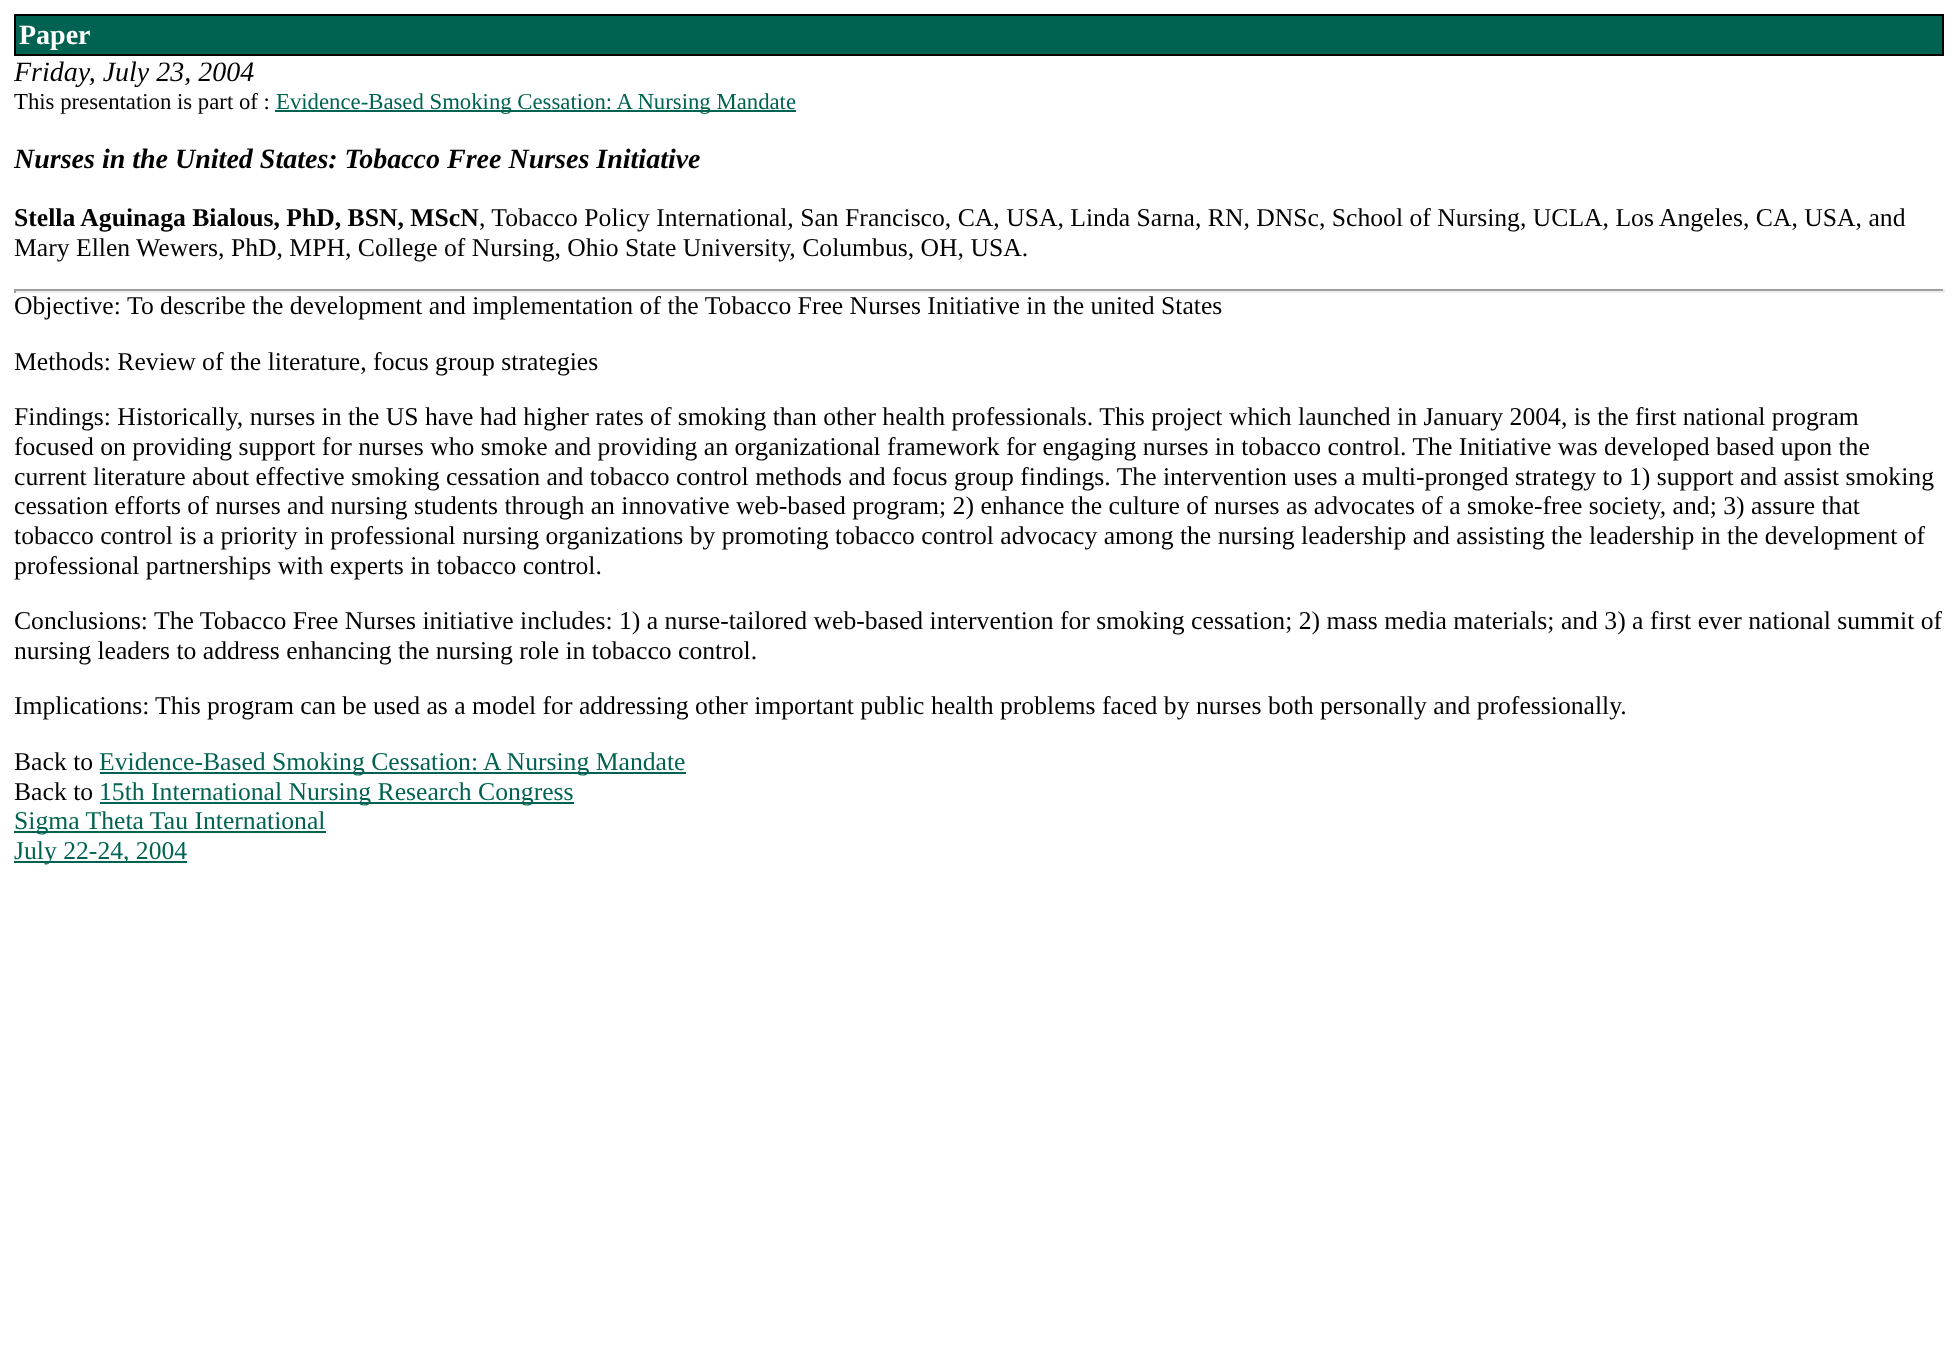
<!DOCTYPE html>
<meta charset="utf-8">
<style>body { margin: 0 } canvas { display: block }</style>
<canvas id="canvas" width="1957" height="1348"></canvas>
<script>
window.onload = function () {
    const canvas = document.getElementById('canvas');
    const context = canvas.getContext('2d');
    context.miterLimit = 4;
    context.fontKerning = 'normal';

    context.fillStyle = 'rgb(255, 255, 255)';
    context.fillRect(0, 0, 1957, 1348);
    context.fillStyle = 'rgb(0, 99, 81)';
    context.beginPath();
    context.rect(15, 15, 1928, 40);
    context.fill();
    context.strokeStyle = 'rgb(0, 0, 0)';
    context.lineWidth = 2;
    context.stroke();
    context.fillRect(275, 110, 521, 2);
    context.fillStyle = 'rgb(159, 159, 159)';
    context.fillRect(14, 289, 1930, 2);
    context.fillStyle = 'rgb(238, 238, 238)';
    context.fillRect(1943, 289, 2, 4);
    context.fillRect(14, 291, 1930, 2);
    context.fillStyle = 'rgb(159, 159, 159)';
    context.fillRect(14, 289, 2, 4);
    context.fillStyle = 'rgb(0, 99, 81)';
    context.fillRect(100, 772, 586, 2);
    context.fillRect(100, 802, 474, 2);
    context.fillRect(14, 831, 312, 2);
    context.fillRect(14, 861, 173, 2);
    context.font = 'bold 28px Liberation Serif';
    context.fillStyle = 'rgb(255, 255, 255)';
    context.fillText('Paper', 19, 44);
    context.font = 'italic 28px Liberation Serif';
    context.fillStyle = 'rgb(0, 0, 0)';
    context.fillText('Friday, July 23, 2004', 14, 81);
    context.font = '22.75px Liberation Serif';
    context.fillText('This presentation is part of :', 14, 109);
    context.fillStyle = 'rgb(0, 99, 81)';
    context.fillText('Evidence-Based Smoking Cessation: A Nursing Mandate', 276, 109);
    context.font = 'italic bold 28px Liberation Serif';
    context.fillStyle = 'rgb(0, 0, 0)';
    context.fillText('Nurses in the United States: Tobacco Free Nurses Initiative', 14, 168);
    context.font = 'bold 25.67px Liberation Serif';
    context.fillText('Stella Aguinaga Bialous, PhD, BSN, MScN', 14, 226);
    context.font = '25.67px Liberation Serif';
    context.fillText(', Tobacco Policy International, San Francisco, CA, USA, Linda Sarna, RN, DNSc, School of Nursing, UCLA, Los Angeles, CA, USA, and', 479, 226);
    context.fillText('Mary Ellen Wewers, PhD, MPH, College of Nursing, Ohio State University, Columbus, OH, USA.', 14, 256);
    context.fillText('Objective:', 14, 314);
    context.fillText('To describe the development and implementation of the Tobacco Free Nurses Initiative in the united States', 127, 314);
    context.fillText('Methods: Review of the literature, focus group strategies', 14, 370);
    context.fillText('Findings: Historically, nurses in the US have had higher rates of smoking than other health professionals. This project which launched in January 2004, is the first national program', 14, 425);
    context.fillText('focused on providing support for nurses who smoke and providing an organizational framework for engaging nurses in tobacco control. The Initiative was developed based upon the', 14, 455);
    context.fillText('current literature about effective smoking cessation and tobacco control methods and focus group findings. The intervention uses a multi-pronged strategy to 1) support and assist smoking', 14, 485);
    context.fillText('cessation efforts of nurses and nursing students through an innovative web-based program; 2) enhance the culture of nurses as advocates of a smoke-free society, and; 3) assure that', 14, 514);
    context.fillText('tobacco control is a priority in professional nursing organizations by promoting tobacco control advocacy among the nursing leadership and assisting the leadership in the development of', 14, 544);
    context.fillText('professional partnerships with experts in tobacco control.', 14, 574);
    context.fillText('Conclusions:', 14, 629);
    context.fillText('The Tobacco Free Nurses initiative includes:', 154, 629);
    context.fillText('1) a nurse-tailored web-based intervention for smoking cessation; 2) mass media materials; and 3) a first ever national summit of', 619, 629);
    context.fillText('nursing leaders to address enhancing the nursing role in tobacco control.', 14, 659);
    context.fillText('Implications:', 14, 714);
    context.fillText('This program can be used as a model for addressing other important public health problems faced by nurses both personally and professionally.', 155, 714);
    context.fillText('Back to', 14, 770);
    context.fillStyle = 'rgb(0, 99, 81)';
    context.fillText('Evidence-Based Smoking Cessation: A Nursing Mandate', 99, 770);
    context.fillStyle = 'rgb(0, 0, 0)';
    context.fillText('Back to', 14, 800);
    context.fillStyle = 'rgb(0, 99, 81)';
    context.fillText('15th International Nursing Research Congress', 99, 800);
    context.fillText('Sigma Theta Tau International', 14, 829);
    context.fillText('July 22-24, 2004', 14, 859);
};
</script>
